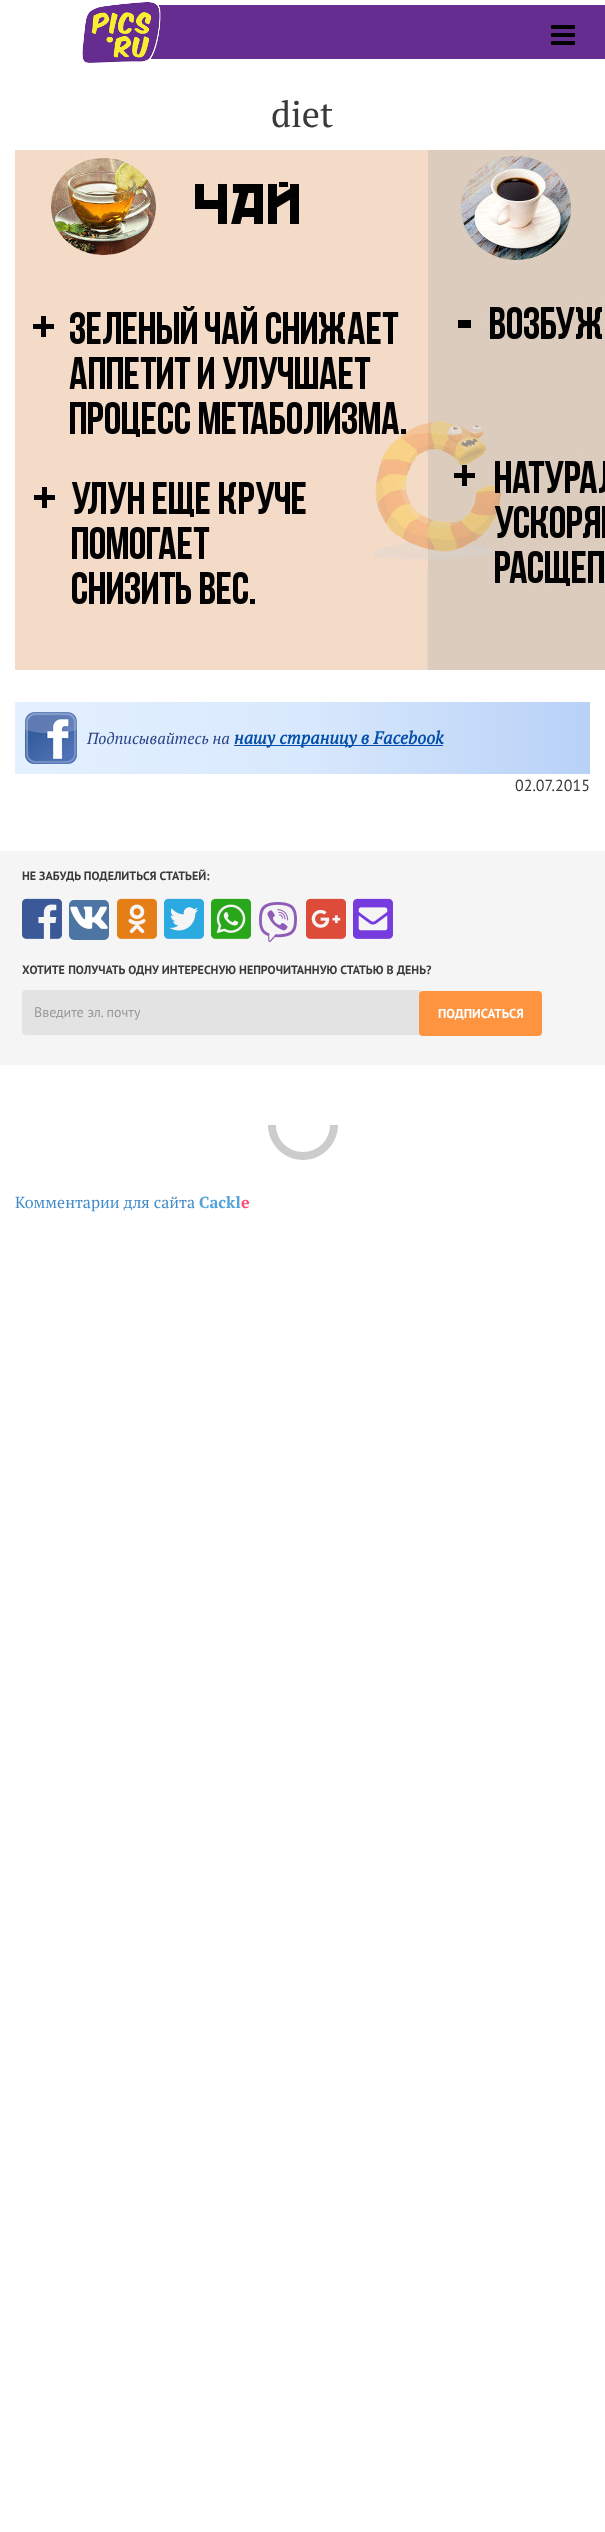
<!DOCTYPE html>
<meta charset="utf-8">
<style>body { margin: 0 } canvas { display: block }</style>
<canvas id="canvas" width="605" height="2532"></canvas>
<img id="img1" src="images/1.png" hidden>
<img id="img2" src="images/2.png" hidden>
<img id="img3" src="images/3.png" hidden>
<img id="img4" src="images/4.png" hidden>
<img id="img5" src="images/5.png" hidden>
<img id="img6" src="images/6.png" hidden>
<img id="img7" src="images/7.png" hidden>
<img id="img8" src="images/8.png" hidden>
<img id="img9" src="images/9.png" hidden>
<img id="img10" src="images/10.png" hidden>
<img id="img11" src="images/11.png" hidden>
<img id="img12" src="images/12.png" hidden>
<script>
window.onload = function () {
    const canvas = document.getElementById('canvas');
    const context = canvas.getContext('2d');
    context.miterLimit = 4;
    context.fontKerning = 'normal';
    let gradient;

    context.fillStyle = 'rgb(255, 255, 255)';
    context.fillRect(0, 0, 605, 2532);
    context.drawImage(document.getElementById('img1'), 82, 2, 523, 61);
    context.drawImage(document.getElementById('img2'), 551, 25, 24, 20);
    context.drawImage(document.getElementById('img3'), 15, 150, 590, 520);
    gradient = context.createLinearGradient(15, 738, 590, 738);
    gradient.addColorStop(0, 'rgb(227, 240, 255)');
    gradient.addColorStop(0.5, 'rgb(217, 233, 253)');
    gradient.addColorStop(1, 'rgb(184, 209, 247)');
    context.fillStyle = gradient;
    context.fillRect(15, 702, 575, 72);
    context.drawImage(document.getElementById('img4'), 25, 712, 52, 52);
    context.fillStyle = 'rgb(4, 79, 170)';
    context.fillRect(234, 745, 209, 1);
    context.fillStyle = 'rgb(245, 245, 245)';
    context.fillRect(0, 851, 605, 214);
    context.drawImage(document.getElementById('img5'), 22, 898, 40, 41);
    context.fillStyle = 'rgb(77, 117, 163)';
    context.beginPath();
    context.roundRect(69, 900, 40, 40, 5);
    context.fill();
    context.drawImage(document.getElementById('img6'), 70, 906, 38, 23);
    context.drawImage(document.getElementById('img7'), 117, 898, 40, 41);
    context.drawImage(document.getElementById('img8'), 164, 898, 40, 41);
    context.drawImage(document.getElementById('img9'), 211, 898, 40, 41);
    context.drawImage(document.getElementById('img10'), 259, 902, 38, 40);
    context.drawImage(document.getElementById('img11'), 306, 898, 40, 41);
    context.drawImage(document.getElementById('img12'), 353, 898, 40, 41);
    context.fillStyle = 'rgb(227, 227, 227)';
    context.beginPath();
    context.roundRect(22, 990, 398, 45, [4, 0, 0, 4]);
    context.fill();
    context.fillStyle = 'rgb(254, 148, 64)';
    context.beginPath();
    context.roundRect(419, 991, 123, 45, 4);
    context.fill();
    context.fillStyle = 'rgb(204, 204, 204)';
    context.beginPath();
    context.moveTo(268, 1125);
    context.bezierCurveTo(268, 1144, 284, 1160, 303, 1160);
    context.bezierCurveTo(322, 1160, 338, 1144, 338, 1125);
    context.lineTo(330, 1125);
    context.bezierCurveTo(330, 1140, 318, 1152, 303, 1152);
    context.bezierCurveTo(288, 1152, 276, 1140, 276, 1125);
    context.closePath();
    context.fill();
    context.font = '36px PT Serif';
    context.fillStyle = 'rgb(58, 58, 58)';
    context.fillText('diet', 271, 127);
    context.font = 'italic 16px PT Serif';
    context.fillStyle = 'rgb(43, 67, 134)';
    context.fillText('Подписывайтесь на', 87, 744);
    context.font = 'italic bold 17.6px PT Serif';
    context.fillStyle = 'rgb(4, 79, 170)';
    context.fillText('нашу страницу в Facebook', 234, 744);
    context.font = '16px PT Sans';
    context.fillStyle = 'rgb(58, 58, 58)';
    context.fillText('02.07.2015', 515, 791);
    context.font = 'bold 12px PT Sans';
    context.fillText('НЕ ЗАБУДЬ ПОДЕЛИТЬСЯ СТАТЬЕЙ:', 22, 880);
    context.wordSpacing = '0.25px';
    context.fillText('ХОТИТЕ ПОЛУЧАТЬ ОДНУ ИНТЕРЕСНУЮ НЕПРОЧИТАННУЮ СТАТЬЮ В ДЕНЬ?', 22, 974);
    context.wordSpacing = '0px';
    context.font = '14px PT Sans';
    context.fillStyle = 'rgb(153, 153, 153)';
    context.fillText('Введите эл. почту', 34, 1017);
    context.font = 'bold 13px PT Sans';
    context.fillStyle = 'rgb(255, 255, 255)';
    context.fillText('ПОДПИСАТЬСЯ', 438, 1018);
    context.font = '16px PT Serif';
    context.fillStyle = 'rgb(66, 139, 202)';
    context.fillText('Комментарии для сайта', 15, 1208);
    context.font = 'bold 16px PT Serif';
    context.fillStyle = 'rgb(79, 163, 218)';
    context.fillText('Cackl', 199, 1208);
    context.fillStyle = 'rgb(246, 80, 119)';
    context.fillText('e', 241, 1208);
};
</script>
